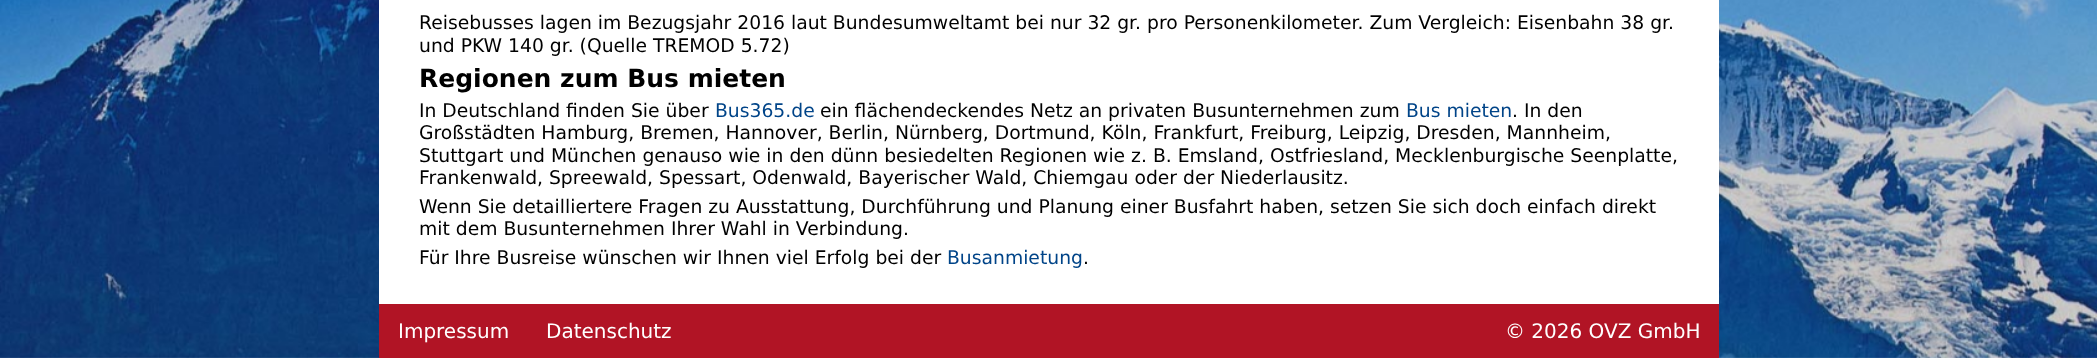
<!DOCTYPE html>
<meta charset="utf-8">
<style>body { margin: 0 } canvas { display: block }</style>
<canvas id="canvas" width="2097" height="358"></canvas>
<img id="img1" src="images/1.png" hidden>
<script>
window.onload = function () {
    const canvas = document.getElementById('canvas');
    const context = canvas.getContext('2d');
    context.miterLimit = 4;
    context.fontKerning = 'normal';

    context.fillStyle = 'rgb(255, 255, 255)';
    context.fillRect(0, 0, 2097, 358);
    context.drawImage(document.getElementById('img1'), 0, 0, 2097, 358);
    context.fillRect(379, 0, 1340, 304);
    context.fillStyle = 'rgb(177, 20, 37)';
    context.fillRect(379, 304, 1340, 54);
    context.font = '18.75px DejaVu Sans';
    context.fillStyle = 'rgb(0, 0, 0)';
    context.fillText('Reisebusses lagen im Bezugsjahr 2016 laut Bundesumweltamt bei nur 32 gr. pro Personenkilometer. Zum Vergleich: Eisenbahn 38 gr.', 419, 29);
    context.fillText('und PKW 140 gr. (Quelle TREMOD 5.72)', 419, 52);
    context.font = 'bold 25px DejaVu Sans';
    context.fillText('Regionen zum Bus mieten', 419, 87);
    context.font = '18.75px DejaVu Sans';
    context.fillText('In Deutschland finden Sie über', 419, 117);
    context.fillStyle = 'rgb(0, 68, 136)';
    context.fillText('Bus365.de', 715, 117);
    context.fillStyle = 'rgb(0, 0, 0)';
    context.fillText('ein flächendeckendes Netz an privaten Busunternehmen zum', 820, 117);
    context.fillStyle = 'rgb(0, 68, 136)';
    context.fillText('Bus mieten', 1406, 117);
    context.fillStyle = 'rgb(0, 0, 0)';
    context.fillText('. In den', 1512, 117);
    context.fillText('Großstädten Hamburg, Bremen, Hannover, Berlin, Nürnberg, Dortmund, Köln, Frankfurt, Freiburg, Leipzig, Dresden, Mannheim,', 419, 139);
    context.fillText('Stuttgart und München genauso wie in den dünn besiedelten Regionen wie z. B. Emsland, Ostfriesland, Mecklenburgische Seenplatte,', 419, 162);
    context.fillText('Frankenwald, Spreewald, Spessart, Odenwald, Bayerischer Wald, Chiemgau oder der Niederlausitz.', 419, 184);
    context.fillText('Wenn Sie detailliertere Fragen zu Ausstattung, Durchführung und Planung einer Busfahrt haben, setzen Sie sich doch einfach direkt', 419, 213);
    context.fillText('mit dem Busunternehmen Ihrer Wahl in Verbindung.', 419, 235);
    context.fillText('Für Ihre Busreise wünschen wir Ihnen viel Erfolg bei der', 419, 264);
    context.fillStyle = 'rgb(0, 68, 136)';
    context.fillText('Busanmietung', 947, 264);
    context.fillStyle = 'rgb(0, 0, 0)';
    context.fillText('.', 1083, 264);
    context.font = '20px DejaVu Sans';
    context.fillStyle = 'rgb(255, 255, 255)';
    context.fillText('Impressum', 398, 338);
    context.fillText('Datenschutz', 546, 338);
    context.fillText('© 2026 OVZ GmbH', 1505, 338);
};
</script>
